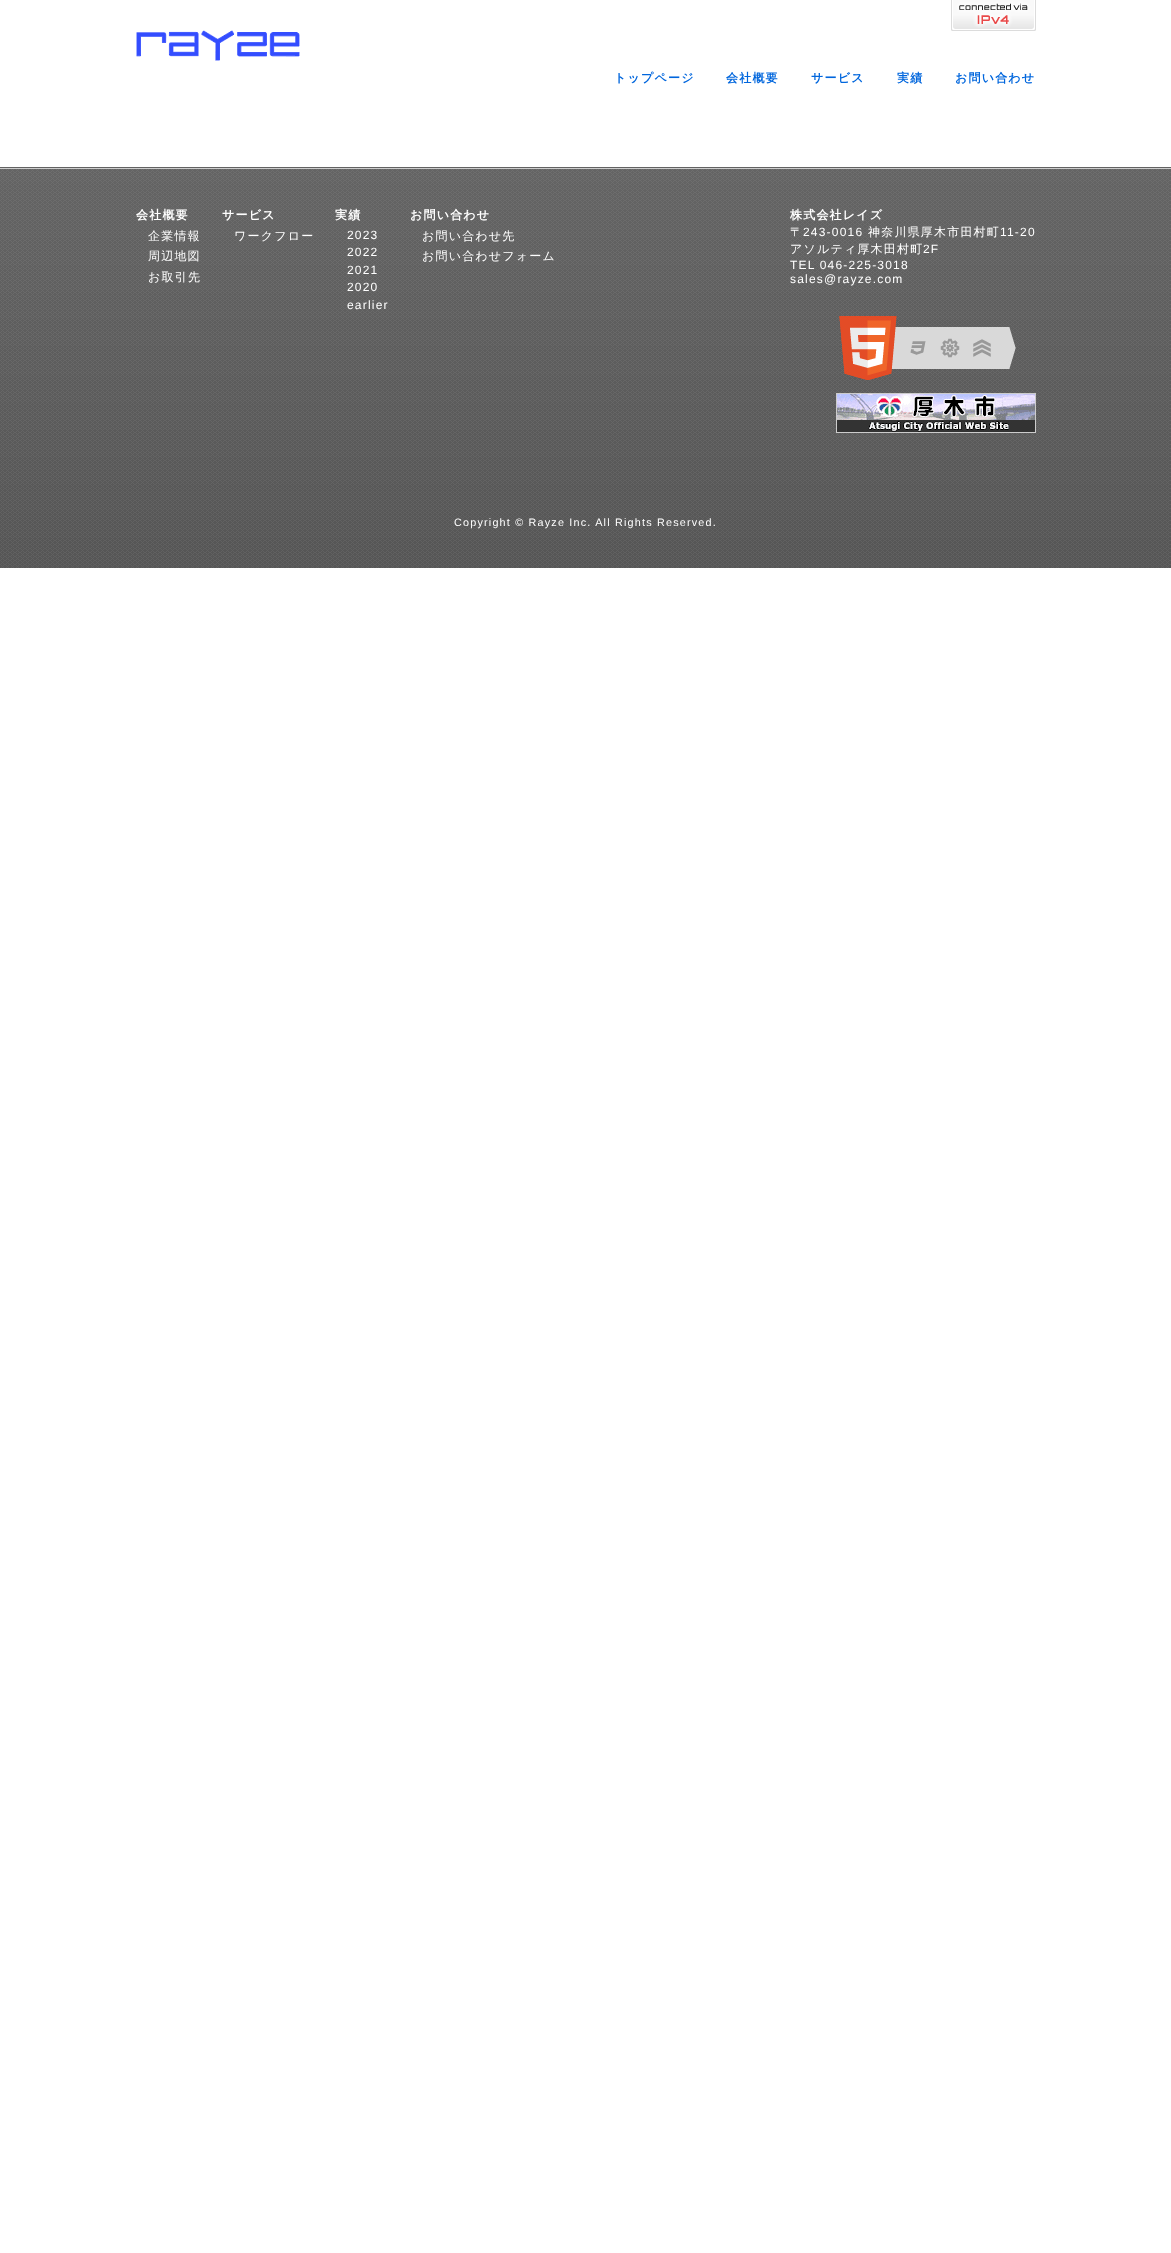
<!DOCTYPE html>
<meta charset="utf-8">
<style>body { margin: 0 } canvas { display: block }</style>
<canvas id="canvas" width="1171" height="2253"></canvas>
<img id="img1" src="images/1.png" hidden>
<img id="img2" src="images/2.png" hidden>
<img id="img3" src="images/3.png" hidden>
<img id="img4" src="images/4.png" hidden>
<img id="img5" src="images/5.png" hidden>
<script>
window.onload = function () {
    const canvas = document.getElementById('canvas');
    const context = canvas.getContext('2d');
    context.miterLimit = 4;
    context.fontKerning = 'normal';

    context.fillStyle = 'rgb(255, 255, 255)';
    context.fillRect(0, 0, 1171, 2253);
    context.drawImage(document.getElementById('img1'), 951, 0, 85, 31);
    context.drawImage(document.getElementById('img2'), 136, 30, 164, 31);
    context.drawImage(document.getElementById('img3'), 0, 167, 1171, 401);
    context.drawImage(document.getElementById('img4'), 839, 316, 177, 64);
    context.drawImage(document.getElementById('img5'), 836, 393, 200, 40);
    context.letterSpacing = '1.2px';
    context.font = 'bold 12px WenQuanYi Zen Hei';
    context.fillStyle = 'rgb(0, 102, 221)';
    context.fillText('トップページ', 614, 82);
    context.fillText('会社概要', 726, 82);
    context.fillText('サービス', 811, 82);
    context.fillText('実績', 897, 82);
    context.fillText('お問い合わせ', 955, 82);
    context.fillStyle = 'rgb(255, 255, 255)';
    context.fillText('会社概要', 136, 219);
    context.font = '500 12px WenQuanYi Zen Hei';
    context.fillText('企業情報', 148, 240);
    context.fillText('周辺地図', 148, 260);
    context.fillText('お取引先', 148, 281);
    context.font = 'bold 12px WenQuanYi Zen Hei';
    context.fillText('サービス', 222, 219);
    context.font = '500 12px WenQuanYi Zen Hei';
    context.fillText('ワークフロー', 234, 240);
    context.font = 'bold 12px WenQuanYi Zen Hei';
    context.fillText('実績', 335, 219);
    context.font = '12px Liberation Sans';
    context.fillText('2023', 347, 239);
    context.fillText('2022', 347, 256);
    context.fillText('2021', 347, 274);
    context.fillText('2020', 347, 291);
    context.fillText('earlier', 347, 309);
    context.font = 'bold 12px WenQuanYi Zen Hei';
    context.fillText('お問い合わせ', 410, 219);
    context.font = '500 12px WenQuanYi Zen Hei';
    context.fillText('お問い合わせ先', 422, 240);
    context.fillText('お問い合わせフォーム', 422, 260);
    context.font = 'bold 12px WenQuanYi Zen Hei';
    context.fillText('株式会社レイズ', 790, 219);
    context.font = '500 12px WenQuanYi Zen Hei';
    context.fillText('〒', 790, 236);
    context.font = '12px Liberation Sans';
    context.fillText('243-0016', 803, 236);
    context.font = '500 12px WenQuanYi Zen Hei';
    context.fillText('神奈川県厚木市田村町', 868, 236);
    context.font = '12px Liberation Sans';
    context.fillText('11-20', 1000, 236);
    context.font = '500 12px WenQuanYi Zen Hei';
    context.fillText('アソルティ厚木田村町', 790, 253);
    context.font = '12px Liberation Sans';
    context.fillText('2F', 923, 253);
    context.fillText('TEL 046-225-3018', 790, 269);
    context.fillText('sales@rayze.com', 790, 283);
    context.font = '10.8px Liberation Sans';
    context.fillText('Copyright © Rayze Inc. All Rights Reserved.', 454, 526);
};
</script>
